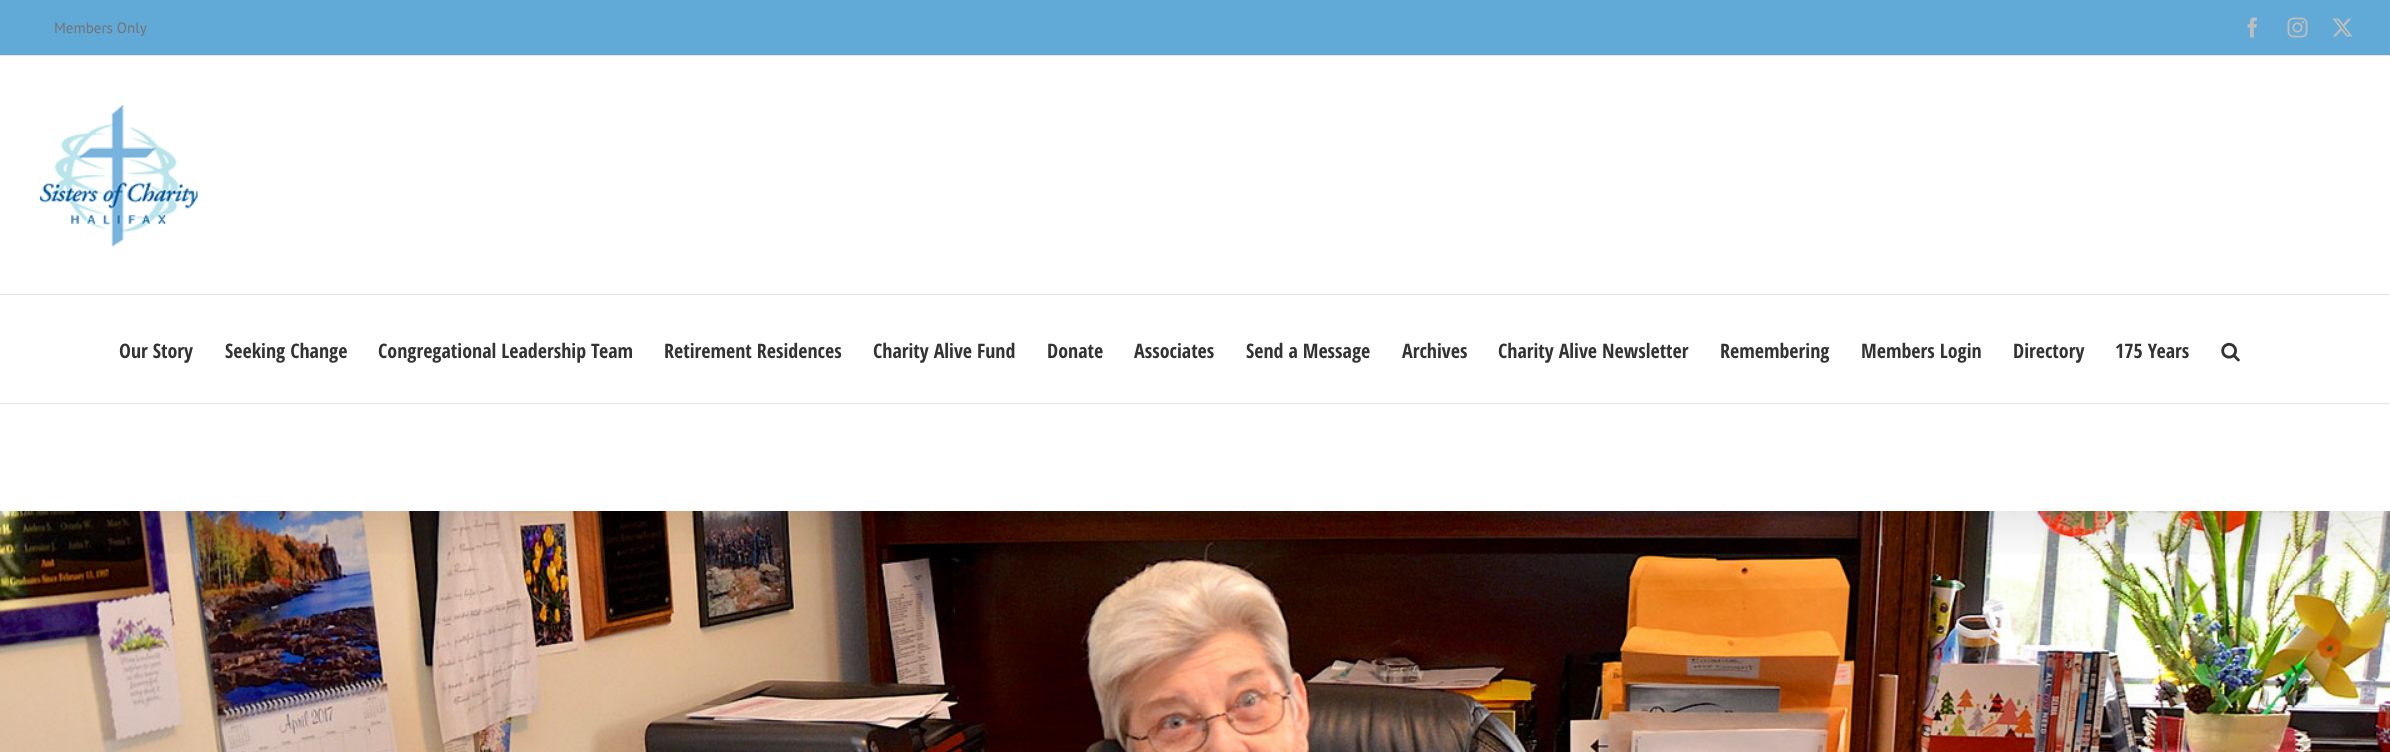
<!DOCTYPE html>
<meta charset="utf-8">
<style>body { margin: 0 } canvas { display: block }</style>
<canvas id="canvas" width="2390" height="752"></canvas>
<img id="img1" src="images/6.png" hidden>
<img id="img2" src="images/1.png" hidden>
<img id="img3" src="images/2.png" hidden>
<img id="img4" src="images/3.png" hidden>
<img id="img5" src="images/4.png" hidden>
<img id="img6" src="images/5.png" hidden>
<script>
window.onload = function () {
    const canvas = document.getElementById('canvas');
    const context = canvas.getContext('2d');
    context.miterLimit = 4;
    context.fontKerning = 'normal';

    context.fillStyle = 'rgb(255, 255, 255)';
    context.fillRect(0, 0, 2390, 752);
    context.drawImage(document.getElementById('img1'), 0, 511, 2390, 241);
    context.save();
    context.beginPath();
    context.rect(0, 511, 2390, 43);
    context.clip();
    context.fillStyle = 'rgba(0, 0, 0, 0.14)';
    context.filter = 'blur(31px)';
    context.beginPath();
    context.rect(3, 15, 2385, 506);
    context.fill();
    context.filter = 'none';
    context.restore();
    context.fillStyle = 'rgb(97, 169, 214)';
    context.fillRect(0, 0, 2390, 55);
    context.fillStyle = 'rgb(229, 229, 229)';
    context.fillRect(0, 55, 2390, 1);
    context.drawImage(document.getElementById('img2'), 2247, 17, 10, 21);
    context.drawImage(document.getElementById('img3'), 2287, 17, 21, 21);
    context.drawImage(document.getElementById('img4'), 2332, 18, 21, 19);
    context.fillRect(0, 294, 2390, 1);
    context.drawImage(document.getElementById('img5'), 39, 105, 159, 142);
    context.fillRect(0, 403, 2390, 1);
    context.drawImage(document.getElementById('img6'), 2221, 342, 19, 20);
    context.font = '15px PT Sans';
    context.fillStyle = 'rgb(116, 116, 116)';
    context.fillText('Members Only', 54, 33);
    context.font = 'bold 20px Open Sans Condensed';
    context.fillStyle = 'rgb(51, 51, 51)';
    context.fillText('Our Story', 119, 358);
    context.fillText('Seeking Change', 225, 358);
    context.fillText('Congregational Leadership Team', 378, 358);
    context.fillText('Retirement Residences', 664, 358);
    context.fillText('Charity Alive Fund', 873, 358);
    context.fillText('Donate', 1047, 358);
    context.fillText('Associates', 1134, 358);
    context.fillText('Send a Message', 1246, 358);
    context.fillText('Archives', 1402, 358);
    context.fillText('Charity Alive Newsletter', 1498, 358);
    context.fillText('Remembering', 1720, 358);
    context.fillText('Members Login', 1861, 358);
    context.fillText('Directory', 2013, 358);
    context.fillText('175 Years', 2115, 358);
};
</script>
